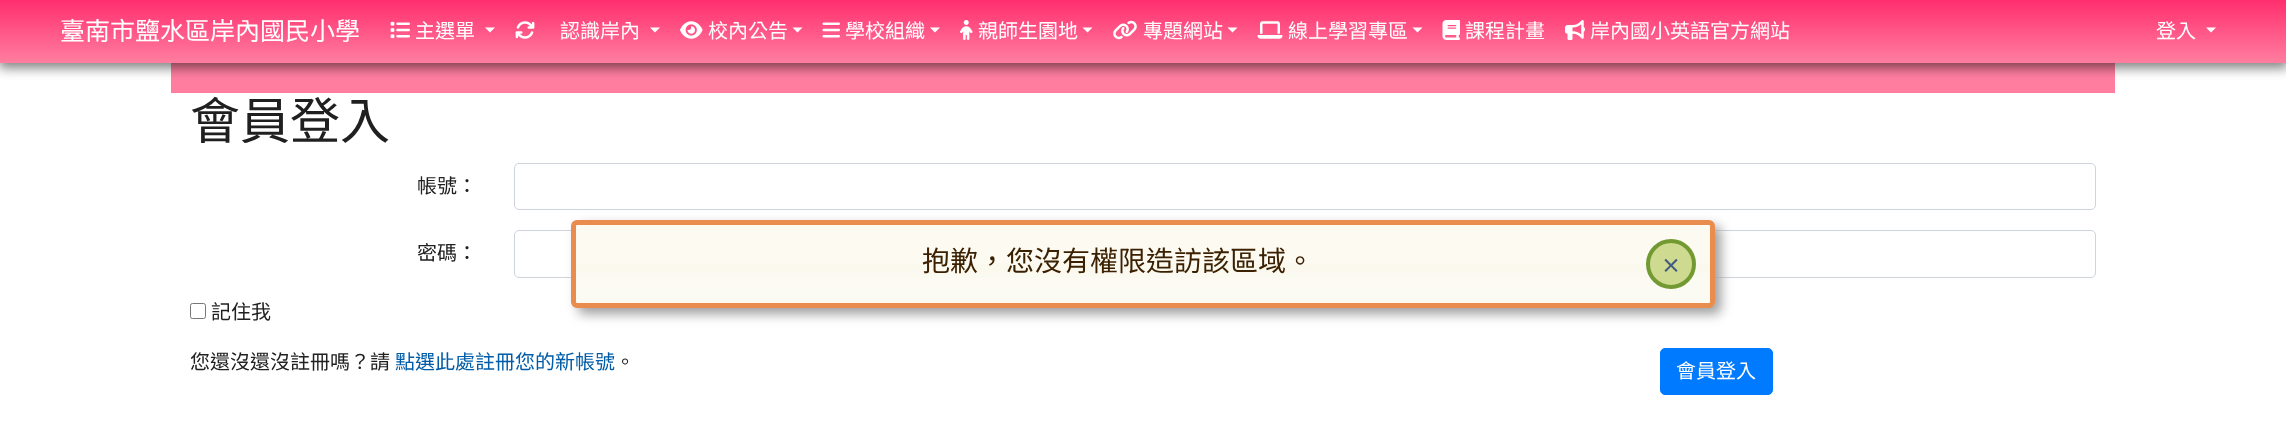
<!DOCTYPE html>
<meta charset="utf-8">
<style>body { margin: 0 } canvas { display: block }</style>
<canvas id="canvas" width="2286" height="427"></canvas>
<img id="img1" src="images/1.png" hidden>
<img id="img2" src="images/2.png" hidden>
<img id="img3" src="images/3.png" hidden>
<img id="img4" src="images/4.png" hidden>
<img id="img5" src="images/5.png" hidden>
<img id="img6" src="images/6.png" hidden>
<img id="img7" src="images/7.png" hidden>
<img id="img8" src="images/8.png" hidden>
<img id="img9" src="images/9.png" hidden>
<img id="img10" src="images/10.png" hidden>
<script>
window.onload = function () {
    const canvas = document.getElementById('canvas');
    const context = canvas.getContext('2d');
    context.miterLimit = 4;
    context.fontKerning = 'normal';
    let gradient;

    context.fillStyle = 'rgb(255, 255, 255)';
    context.fillRect(0, 0, 2286, 427);
    context.fillStyle = 'rgb(255, 126, 160)';
    context.fillRect(171, 63, 1944, 30);
    context.fillStyle = 'rgba(0, 0, 0, 0.5)';
    context.filter = 'blur(6px)';
    context.beginPath();
    context.rect(-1, 3, 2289, 65);
    context.fill();
    context.filter = 'none';
    gradient = context.createLinearGradient(1143, 0, 1143, 63);
    gradient.addColorStop(0, 'rgb(255, 46, 110)');
    gradient.addColorStop(1, 'rgb(255, 126, 160)');
    context.fillStyle = gradient;
    context.fillRect(0, 0, 2286, 63);
    context.drawImage(document.getElementById('img1'), 390, 21, 20, 18);
    context.fillStyle = 'rgb(255, 255, 255)';
    context.beginPath();
    context.moveTo(485, 27.5);
    context.lineTo(495, 27.5);
    context.lineTo(490, 32.5);
    context.closePath();
    context.fill();
    context.drawImage(document.getElementById('img2'), 515, 21, 20, 18);
    context.beginPath();
    context.moveTo(650, 27.5);
    context.lineTo(660, 27.5);
    context.lineTo(655, 32.5);
    context.closePath();
    context.fill();
    context.drawImage(document.getElementById('img3'), 680, 21, 23, 18);
    context.beginPath();
    context.moveTo(792.5, 27.5);
    context.lineTo(802.5, 27.5);
    context.lineTo(797.5, 32.5);
    context.closePath();
    context.fill();
    context.drawImage(document.getElementById('img4'), 822, 22, 18, 16);
    context.beginPath();
    context.moveTo(930, 27.5);
    context.lineTo(940, 27.5);
    context.lineTo(935, 32.5);
    context.closePath();
    context.fill();
    context.drawImage(document.getElementById('img5'), 960, 20, 13, 20);
    context.beginPath();
    context.moveTo(1082.5, 27.5);
    context.lineTo(1092.5, 27.5);
    context.lineTo(1087.5, 32.5);
    context.closePath();
    context.fill();
    context.drawImage(document.getElementById('img6'), 1113, 20, 24, 20);
    context.beginPath();
    context.moveTo(1227.5, 27.5);
    context.lineTo(1237.5, 27.5);
    context.lineTo(1232.5, 32.5);
    context.closePath();
    context.fill();
    context.drawImage(document.getElementById('img7'), 1257, 21, 26, 18);
    context.beginPath();
    context.moveTo(1412.5, 27.5);
    context.lineTo(1422.5, 27.5);
    context.lineTo(1417.5, 32.5);
    context.closePath();
    context.fill();
    context.drawImage(document.getElementById('img8'), 1442, 20, 18, 20);
    context.drawImage(document.getElementById('img9'), 1565, 20, 20, 20);
    context.beginPath();
    context.moveTo(2206, 27.5);
    context.lineTo(2216, 27.5);
    context.lineTo(2211, 32.5);
    context.closePath();
    context.fill();
    context.beginPath();
    context.roundRect(514.5, 163.5, 1581, 46, 4.5);
    context.strokeStyle = 'rgb(206, 212, 218)';
    context.stroke();
    context.beginPath();
    context.roundRect(514.5, 230.5, 1581, 47, 4.5);
    context.stroke();
    context.beginPath();
    context.roundRect(190.5, 303.5, 15, 15, 2);
    context.strokeStyle = 'rgb(118, 118, 118)';
    context.stroke();
    context.fillStyle = 'rgb(0, 123, 255)';
    context.beginPath();
    context.roundRect(1660.5, 348.5, 112, 46, 4.5);
    context.fill();
    context.strokeStyle = 'rgb(0, 123, 255)';
    context.stroke();
    context.fillStyle = 'rgb(158, 158, 158)';
    context.filter = 'blur(6px)';
    context.beginPath();
    context.roundRect(578, 226, 1143, 88, 6);
    context.fill();
    context.filter = 'none';
    context.drawImage(document.getElementById('img10'), 571, 220, 1144, 87);
    context.beginPath();
    context.roundRect(573.5, 222.5, 1139, 83, 3.5);
    context.strokeStyle = 'rgb(233, 140, 77)';
    context.lineWidth = 5;
    context.stroke();
    context.fillStyle = 'rgb(206, 218, 143)';
    context.beginPath();
    context.arc(1671, 264, 23, 0, 2 * Math.PI);
    context.fill();
    context.strokeStyle = 'rgb(114, 153, 50)';
    context.lineWidth = 4;
    context.stroke();
    context.font = '25px Noto Sans CJK TC';
    context.fillStyle = 'rgb(255, 255, 255)';
    context.fillText('臺南市鹽水區岸內國民小學', 60, 40);
    context.font = '20px Noto Sans CJK TC';
    context.fillText('主選單', 415, 38);
    context.fillText('認識岸內', 560, 38);
    context.fillText('校內公告', 708, 38);
    context.fillText('學校組織', 845, 38);
    context.fillText('親師生園地', 978, 38);
    context.fillText('專題網站', 1143, 38);
    context.fillText('線上學習專區', 1288, 38);
    context.fillText('課程計畫', 1465, 38);
    context.fillText('岸內國小英語官方網站', 1590, 38);
    context.fillText('登入', 2156, 38);
    context.font = '50px Noto Sans CJK TC';
    context.fillStyle = 'rgb(32, 32, 32)';
    context.fillText('會員登入', 190, 139);
    context.font = '20px Noto Sans CJK TC';
    context.fillText('帳號：', 417, 193);
    context.fillText('密碼：', 417, 260);
    context.fillText('記住我', 211, 319);
    context.fillText('您還沒還沒註冊嗎？請', 190, 369);
    context.fillStyle = 'rgb(0, 92, 168)';
    context.fillText('點選此處註冊您的新帳號', 395, 369);
    context.fillStyle = 'rgb(32, 32, 32)';
    context.fillText('。', 615, 369);
    context.fillStyle = 'rgb(255, 255, 255)';
    context.fillText('會員登入', 1676, 378);
    context.font = '28px Noto Sans TC';
    context.fillStyle = 'rgb(59, 32, 1)';
    context.fillText('抱歉，您沒有權限造訪該區域。', 922, 271);
    context.font = 'bold 20px Noto Sans TC';
    context.fillStyle = 'rgb(64, 90, 128)';
    context.fillText('×', 1661, 273);
};
</script>
